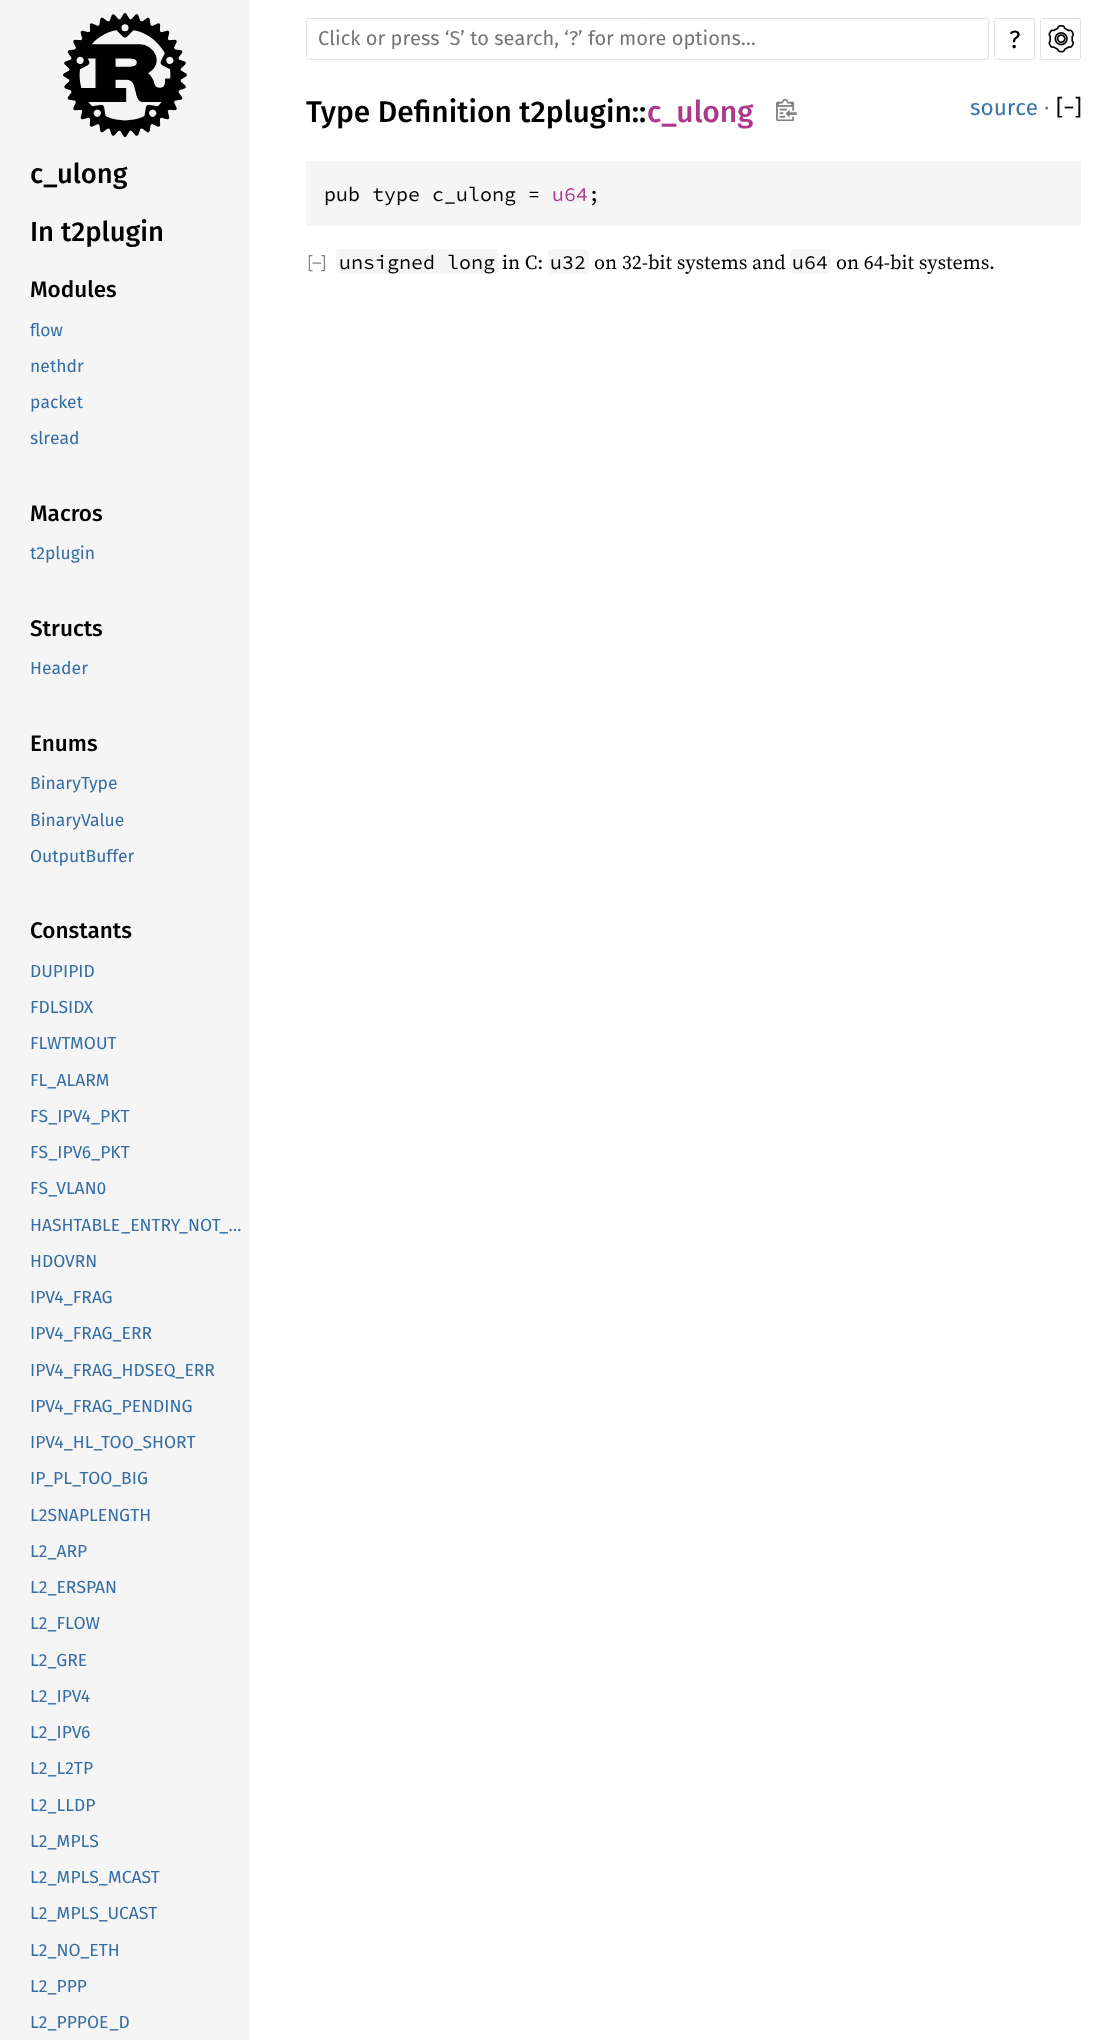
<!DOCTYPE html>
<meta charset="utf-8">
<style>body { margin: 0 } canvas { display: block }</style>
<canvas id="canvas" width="1099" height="2040"></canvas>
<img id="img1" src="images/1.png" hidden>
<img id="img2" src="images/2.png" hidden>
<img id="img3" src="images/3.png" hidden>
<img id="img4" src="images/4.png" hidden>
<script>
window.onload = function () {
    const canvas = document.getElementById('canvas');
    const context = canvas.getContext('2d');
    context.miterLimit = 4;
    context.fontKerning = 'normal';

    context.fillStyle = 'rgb(255, 255, 255)';
    context.fillRect(0, 0, 1099, 2040);
    context.fillStyle = 'rgb(245, 245, 245)';
    context.fillRect(0, 0, 250, 2040);
    context.drawImage(document.getElementById('img1'), 63, 13, 124, 124);
    context.beginPath();
    context.roundRect(306.5, 18.5, 682, 41, 2);
    context.strokeStyle = 'rgb(224, 224, 224)';
    context.stroke();
    context.beginPath();
    context.roundRect(994.5, 18.5, 40, 41, 2);
    context.stroke();
    context.beginPath();
    context.roundRect(1040.5, 18.5, 40, 41, 2);
    context.stroke();
    context.drawImage(document.getElementById('img2'), 1048, 25, 26, 28);
    context.drawImage(document.getElementById('img3'), 776, 99, 21, 22);
    context.fillRect(306, 161, 775, 65);
    context.drawImage(document.getElementById('img4'), 308, 255, 17, 17);
    context.beginPath();
    context.roundRect(336, 249, 162, 25, 4);
    context.fill();
    context.beginPath();
    context.roundRect(548, 249, 41, 25, 4);
    context.fill();
    context.beginPath();
    context.roundRect(790, 249, 41, 25, 4);
    context.fill();
    context.font = '500 27.5px Fira Sans';
    context.fillStyle = 'rgb(0, 0, 0)';
    context.fillText('c_ulong', 30, 183);
    context.fillText('In t2plugin', 30, 241);
    context.font = '500 22.5px Fira Sans';
    context.fillText('Modules', 30, 297);
    context.font = '17.5px Fira Sans';
    context.fillStyle = 'rgb(53, 109, 164)';
    context.fillText('flow', 30, 336);
    context.fillText('nethdr', 30, 372);
    context.fillText('packet', 30, 408);
    context.fillText('slread', 30, 444);
    context.font = '500 22.5px Fira Sans';
    context.fillStyle = 'rgb(0, 0, 0)';
    context.fillText('Macros', 30, 521);
    context.font = '17.5px Fira Sans';
    context.fillStyle = 'rgb(53, 109, 164)';
    context.fillText('t2plugin', 30, 559);
    context.font = '500 22.5px Fira Sans';
    context.fillStyle = 'rgb(0, 0, 0)';
    context.fillText('Structs', 30, 636);
    context.font = '17.5px Fira Sans';
    context.fillStyle = 'rgb(53, 109, 164)';
    context.fillText('Header', 30, 674);
    context.font = '500 22.5px Fira Sans';
    context.fillStyle = 'rgb(0, 0, 0)';
    context.fillText('Enums', 30, 751);
    context.font = '17.5px Fira Sans';
    context.fillStyle = 'rgb(53, 109, 164)';
    context.fillText('BinaryType', 30, 789);
    context.fillText('BinaryValue', 30, 826);
    context.fillText('OutputBuffer', 30, 862);
    context.font = '500 22.5px Fira Sans';
    context.fillStyle = 'rgb(0, 0, 0)';
    context.fillText('Constants', 30, 938);
    context.font = '17.5px Fira Sans';
    context.fillStyle = 'rgb(53, 109, 164)';
    context.fillText('DUPIPID', 30, 977);
    context.fillText('FDLSIDX', 30, 1013);
    context.fillText('FLWTMOUT', 30, 1049);
    context.fillText('FL_ALARM', 30, 1086);
    context.fillText('FS_IPV4_PKT', 30, 1122);
    context.fillText('FS_IPV6_PKT', 30, 1158);
    context.fillText('FS_VLAN0', 30, 1194);
    context.fillText('HASHTABLE_ENTRY_NOT_…', 30, 1231);
    context.fillText('HDOVRN', 30, 1267);
    context.fillText('IPV4_FRAG', 30, 1303);
    context.fillText('IPV4_FRAG_ERR', 30, 1339);
    context.fillText('IPV4_FRAG_HDSEQ_ERR', 30, 1376);
    context.fillText('IPV4_FRAG_PENDING', 30, 1412);
    context.fillText('IPV4_HL_TOO_SHORT', 30, 1448);
    context.fillText('IP_PL_TOO_BIG', 30, 1484);
    context.fillText('L2SNAPLENGTH', 30, 1521);
    context.fillText('L2_ARP', 30, 1557);
    context.fillText('L2_ERSPAN', 30, 1593);
    context.fillText('L2_FLOW', 30, 1629);
    context.fillText('L2_GRE', 30, 1666);
    context.fillText('L2_IPV4', 30, 1702);
    context.fillText('L2_IPV6', 30, 1738);
    context.fillText('L2_L2TP', 30, 1774);
    context.fillText('L2_LLDP', 30, 1811);
    context.fillText('L2_MPLS', 30, 1847);
    context.fillText('L2_MPLS_MCAST', 30, 1883);
    context.fillText('L2_MPLS_UCAST', 30, 1919);
    context.fillText('L2_NO_ETH', 30, 1956);
    context.fillText('L2_PPP', 30, 1992);
    context.fillText('L2_PPPOE_D', 30, 2028);
    context.font = '20px Fira Sans';
    context.fillStyle = 'rgb(117, 117, 117)';
    context.fillText('Click or press ‘S’ to search, ‘?’ for more options…', 318, 45);
    context.font = '25px Fira Sans';
    context.fillStyle = 'rgb(0, 0, 0)';
    context.fillText('?', 1009, 48);
    context.font = '500 30px Fira Sans';
    context.fillText('Type Definition t2plugin::', 306, 122);
    context.fillStyle = 'rgb(173, 55, 138)';
    context.fillText('c_ulong', 647, 122);
    context.font = '22.5px Fira Sans';
    context.fillStyle = 'rgb(56, 115, 173)';
    context.fillText('source', 970, 115);
    context.fillStyle = 'rgb(128, 128, 128)';
    context.fillText('·', 1044, 115);
    context.fillStyle = 'rgb(0, 0, 0)';
    context.fillText('[−]', 1056, 115);
    context.font = '20px Source Code Pro';
    context.fillText('pub type c_ulong =', 324, 201);
    context.fillStyle = 'rgb(173, 55, 138)';
    context.fillText('u64', 552, 201);
    context.fillStyle = 'rgb(0, 0, 0)';
    context.fillText(';', 588, 201);
    context.fillText('unsigned long', 339, 269);
    context.font = '20px "Source Serif 4"';
    context.fillText('in C:', 502, 269);
    context.font = '20px Source Code Pro';
    context.fillText('u32', 550, 269);
    context.font = '20px "Source Serif 4"';
    context.fillText('on 32-bit systems and', 594, 269);
    context.font = '20px Source Code Pro';
    context.fillText('u64', 792, 269);
    context.font = '20px "Source Serif 4"';
    context.fillText('on 64-bit systems.', 836, 269);
};
</script>
